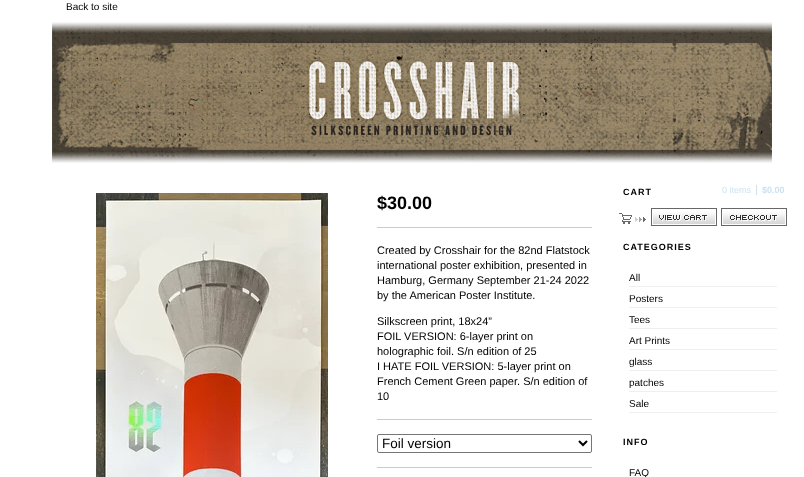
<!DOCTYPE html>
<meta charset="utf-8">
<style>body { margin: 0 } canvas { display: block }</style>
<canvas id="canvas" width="804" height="477"></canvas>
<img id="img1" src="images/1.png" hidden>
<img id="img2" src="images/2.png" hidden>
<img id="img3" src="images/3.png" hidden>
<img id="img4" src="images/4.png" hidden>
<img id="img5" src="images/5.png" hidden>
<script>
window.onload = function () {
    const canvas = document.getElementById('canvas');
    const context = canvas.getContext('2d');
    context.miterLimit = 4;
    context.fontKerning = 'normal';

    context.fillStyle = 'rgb(255, 255, 255)';
    context.fillRect(0, 0, 804, 477);
    context.drawImage(document.getElementById('img1'), 52, 22, 720, 141);
    context.drawImage(document.getElementById('img2'), 96, 193, 232, 284);
    context.fillStyle = 'rgb(204, 204, 204)';
    context.fillRect(377, 227, 215, 1);
    context.fillRect(377, 419, 215, 1);
    context.fillRect(377, 467, 215, 1);
    context.beginPath();
    context.roundRect(377.5, 434.5, 214, 18, 1.5);
    context.strokeStyle = 'rgb(118, 118, 118)';
    context.stroke();
    context.beginPath();
    context.moveTo(579, 441);
    context.lineTo(583, 445);
    context.lineTo(587, 441);
    context.strokeStyle = 'rgb(0, 0, 0)';
    context.lineWidth = 2;
    context.stroke();
    context.drawImage(document.getElementById('img3'), 619, 213, 27, 11);
    context.fillStyle = 'rgb(205, 226, 240)';
    context.fillRect(756, 185, 1, 10);
    context.drawImage(document.getElementById('img4'), 651, 208, 66, 18);
    context.drawImage(document.getElementById('img5'), 721, 208, 66, 18);
    context.fillStyle = 'rgb(239, 239, 239)';
    context.fillRect(629, 286, 148, 1);
    context.fillRect(629, 307, 148, 1);
    context.fillRect(629, 328, 148, 1);
    context.fillRect(629, 349, 148, 1);
    context.fillRect(629, 370, 148, 1);
    context.fillRect(629, 391, 148, 1);
    context.fillRect(629, 412, 148, 1);
    context.font = '10px Liberation Sans';
    context.fillStyle = 'rgb(0, 0, 0)';
    context.fillText('Back to site', 66, 10);
    context.font = 'bold 18px Liberation Sans';
    context.fillText('$30.00', 377, 209);
    context.font = '11px Liberation Sans';
    context.fillText('Created by Crosshair for the 82nd Flatstock', 377, 254);
    context.fillText('international poster exhibition, presented in', 377, 269);
    context.fillText('Hamburg, Germany September 21-24 2022', 377, 284);
    context.fillText('by the American Poster Institute.', 377, 299);
    context.fillText('Silkscreen print, 18x24”', 377, 325);
    context.fillText('FOIL VERSION: 6-layer print on', 377, 340);
    context.fillText('holographic foil. S/n edition of 25', 377, 355);
    context.fillText('I HATE FOIL VERSION: 5-layer print on', 377, 370);
    context.fillText('French Cement Green paper. S/n edition of', 377, 385);
    context.fillText('10', 377, 400);
    context.font = '13.5px Liberation Sans';
    context.fillText('Foil version', 382, 448);
    context.letterSpacing = '1px';
    context.font = 'bold 9px Liberation Sans';
    context.fillText('CART', 623, 195);
    context.letterSpacing = '0px';
    context.font = '9px Liberation Sans';
    context.fillStyle = 'rgb(205, 226, 240)';
    context.fillText('0 items', 722, 193);
    context.font = 'bold 9px Liberation Sans';
    context.fillText('$0.00', 762, 193);
    context.letterSpacing = '1px';
    context.fillStyle = 'rgb(0, 0, 0)';
    context.fillText('CATEGORIES', 623, 250);
    context.letterSpacing = '0px';
    context.font = '10px Liberation Sans';
    context.fillText('All', 629, 281);
    context.fillText('Posters', 629, 302);
    context.fillText('Tees', 629, 323);
    context.fillText('Art Prints', 629, 344);
    context.fillText('glass', 629, 365);
    context.fillText('patches', 629, 386);
    context.fillText('Sale', 629, 407);
    context.letterSpacing = '1px';
    context.font = 'bold 9px Liberation Sans';
    context.fillText('INFO', 623, 445);
    context.letterSpacing = '0px';
    context.font = '10px Liberation Sans';
    context.fillText('FAQ', 629, 476);
};
</script>
